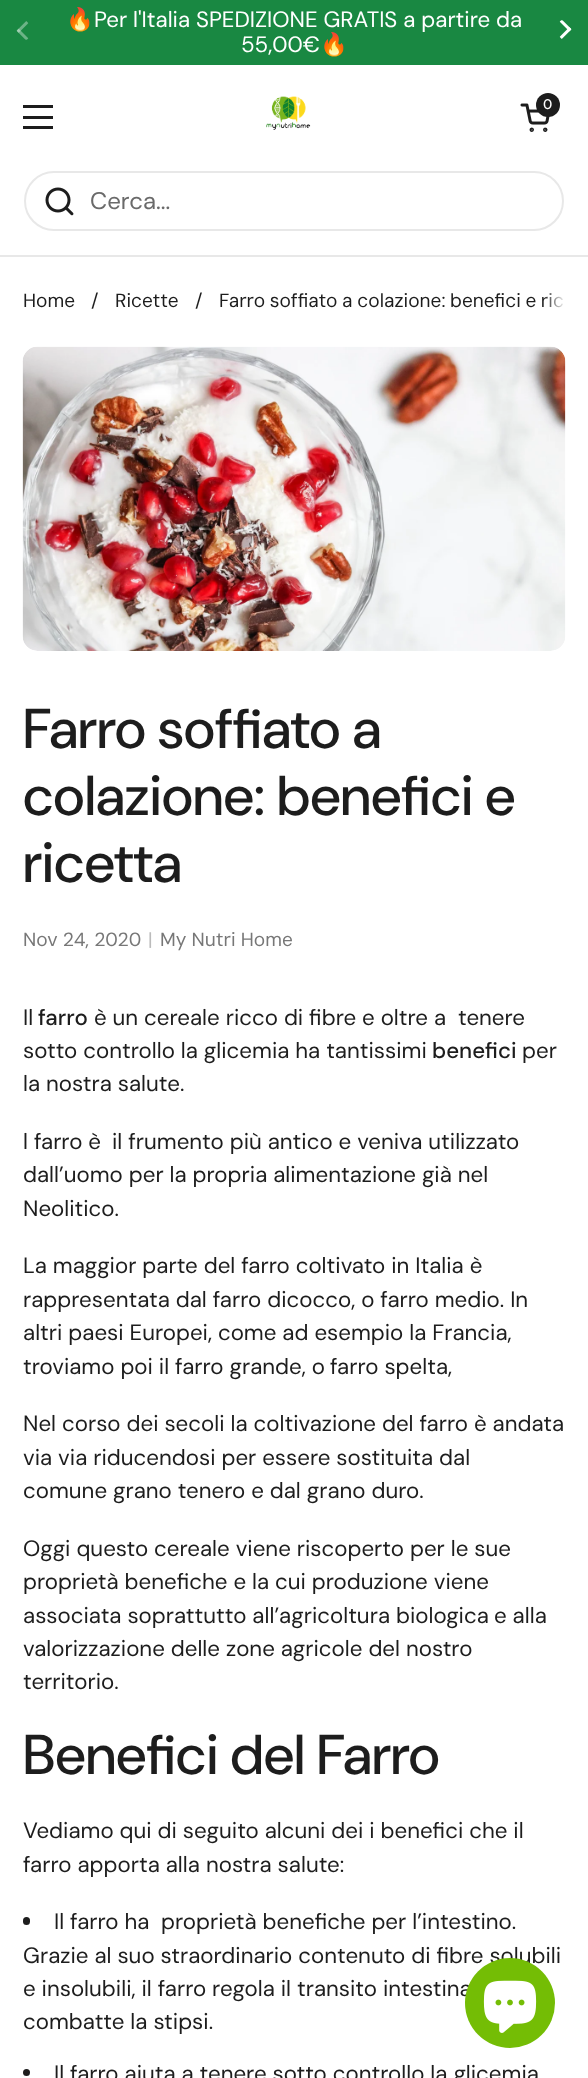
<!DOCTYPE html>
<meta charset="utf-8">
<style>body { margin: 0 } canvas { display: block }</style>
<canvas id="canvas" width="588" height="2078"></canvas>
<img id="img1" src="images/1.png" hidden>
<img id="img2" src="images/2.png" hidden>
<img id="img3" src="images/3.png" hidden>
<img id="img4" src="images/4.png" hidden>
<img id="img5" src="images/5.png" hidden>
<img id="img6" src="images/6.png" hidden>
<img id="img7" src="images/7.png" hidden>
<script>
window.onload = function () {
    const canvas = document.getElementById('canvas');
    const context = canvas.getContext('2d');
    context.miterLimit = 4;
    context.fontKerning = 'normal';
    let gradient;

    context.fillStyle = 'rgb(255, 255, 255)';
    context.fillRect(0, 0, 588, 2078);
    context.fillStyle = 'rgb(25, 136, 66)';
    context.fillRect(0, 0, 588, 65);
    context.drawImage(document.getElementById('img1'), 16, 21, 13, 19);
    context.drawImage(document.getElementById('img2'), 559, 20, 13, 19);
    context.fillStyle = 'rgb(29, 29, 29)';
    context.fillRect(23, 105, 30, 3);
    context.fillRect(23, 116, 30, 3);
    context.fillRect(23, 126, 30, 3);
    context.drawImage(document.getElementById('img3'), 266, 96, 45, 34);
    context.drawImage(document.getElementById('img4'), 520, 103, 30, 29);
    context.beginPath();
    context.arc(548, 105, 12, 0, 2 * Math.PI);
    context.fill();
    context.fillStyle = 'rgb(232, 232, 232)';
    context.fillRect(0, 255, 588, 2);
    context.beginPath();
    context.roundRect(25, 172, 538, 58, 29);
    context.strokeStyle = 'rgb(232, 232, 232)';
    context.lineWidth = 2;
    context.stroke();
    context.drawImage(document.getElementById('img5'), 45, 187, 29, 29);
    context.drawImage(document.getElementById('img6'), 22, 346, 544, 305);
    context.fillStyle = 'rgb(29, 29, 29)';
    context.beginPath();
    context.roundRect(23, 1917, 7, 8, 3.5);
    context.fill();
    context.beginPath();
    context.arc(26.5, 2072.5, 3.5, 0, 2 * Math.PI);
    context.fill();
    context.font = '22.3px Noto Color Emoji';
    context.fillStyle = 'rgb(255, 255, 255)';
    context.fillText('🔥', 66, 27);
    context.font = '22.3px DM Sans';
    context.fillText('Per l\'Italia SPEDIZIONE GRATIS a partire da', 94, 27);
    context.fillText('55,00€', 241, 52);
    context.font = '22.3px Noto Color Emoji';
    context.fillText('🔥', 320, 52);
    context.font = '500 14px "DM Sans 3"';
    context.fillText('0', 543, 109);
    context.font = '24px "DM Sans 3"';
    context.fillStyle = 'rgb(106, 106, 106)';
    context.fillText('Cerca...', 90, 209);
    context.font = '19.1px "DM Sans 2"';
    context.fillStyle = 'rgb(29, 29, 29)';
    context.fillText('Home', 23, 307);
    context.fillText('/', 91, 307);
    context.fillText('Ricette', 115, 307);
    context.fillText('/', 195, 307);
    context.wordSpacing = '-0.5px';
    context.fillText('Farro soffiato a colazione: benefici e ric', 219, 307);
    gradient = context.createLinearGradient(588, 302, 543, 302);
    gradient.addColorStop(0.5, 'rgb(255, 255, 255)');
    gradient.addColorStop(1, 'rgba(255, 255, 255, 0)');
    context.fillStyle = gradient;
    context.fillRect(543, 292, 21, 16);
    context.wordSpacing = '0px';
    context.font = '500 56px DM Sans';
    context.fillStyle = 'rgb(29, 29, 29)';
    context.fillText('Farro soffiato a', 23, 748);
    context.fillText('colazione: benefici e', 23, 815);
    context.fillText('ricetta', 23, 882);
    context.font = '19.1px "DM Sans 2"';
    context.fillStyle = 'rgb(119, 119, 119)';
    context.fillText('Nov 24, 2020', 23, 946);
    context.fillStyle = 'rgb(187, 187, 187)';
    context.fillText('|', 148, 946);
    context.fillStyle = 'rgb(119, 119, 119)';
    context.fillText('My Nutri Home', 160, 946);
    context.font = '22.3px DM Sans';
    context.fillStyle = 'rgb(29, 29, 29)';
    context.fillText('Il', 23, 1025);
    context.font = '500 22.3px "DM Sans 2"';
    context.fillText('farro', 38, 1025);
    context.font = '22.3px DM Sans';
    context.fillText('è un cereale ricco di fibre e oltre a', 94, 1025);
    context.fillText('tenere', 458, 1025);
    context.fillText('sotto controllo la glicemia ha tantissimi', 23, 1058);
    context.font = '500 22.3px "DM Sans 2"';
    context.fillText('benefici', 432, 1058);
    context.font = '22.3px DM Sans';
    context.fillText('per', 522, 1058);
    context.fillText('la nostra salute.', 23, 1091);
    context.fillText('l farro è', 23, 1149);
    context.fillText('il frumento più antico e veniva utilizzato', 112, 1149);
    context.fillText('dall’uomo per la propria alimentazione già nel', 23, 1182);
    context.fillText('Neolitico.', 23, 1216);
    context.fillText('La maggior parte del farro coltivato in Italia è', 23, 1273);
    context.fillText('rappresentata dal farro dicocco, o farro medio. In', 23, 1307);
    context.fillText('altri paesi Europei, come ad esempio la Francia,', 23, 1340);
    context.fillText('troviamo poi il farro grande, o', 23, 1374);
    context.fillText('farro spelta,', 330, 1374);
    context.fillText('Nel corso dei secoli la coltivazione del farro è andata', 23, 1431);
    context.fillText('via via riducendosi per essere sostituita dal', 23, 1465);
    context.fillText('comune grano tenero e dal grano duro.', 23, 1498);
    context.fillText('Oggi questo cereale viene riscoperto per le sue', 23, 1556);
    context.fillText('proprietà benefiche e la cui produzione viene', 23, 1589);
    context.fillText('associata soprattutto all’agricoltura biologica', 23, 1623);
    context.fillText('e alla', 494, 1623);
    context.fillText('valorizzazione delle zone agricole del nostro', 23, 1656);
    context.fillText('territorio.', 23, 1689);
    context.font = '500 56px DM Sans';
    context.fillText('Benefici del Farro', 23, 1774);
    context.font = '22.3px DM Sans';
    context.fillText('Vediamo qui di seguito alcuni dei i benefici che il', 23, 1838);
    context.fillText('farro apporta alla nostra salute:', 23, 1872);
    context.fillText('Il farro ha', 54, 1929);
    context.fillText('proprietà benefiche per l’intestino.', 161, 1929);
    context.fillText('Grazie al suo straordinario contenuto di fibre solubili', 23, 1963);
    context.fillText('e insolubili, il farro regola il transito intestina', 23, 1996);
    context.fillText('combatte la stipsi.', 23, 2029);
    context.fillText('Il farro aiuta a tenere sotto controllo la glicemia', 54, 2081);
    context.fillStyle = 'rgb(116, 189, 5)';
    context.beginPath();
    context.arc(510, 2003, 45, 0, 2 * Math.PI);
    context.fill();
    context.drawImage(document.getElementById('img7'), 483, 1980, 54, 53);
};
</script>
